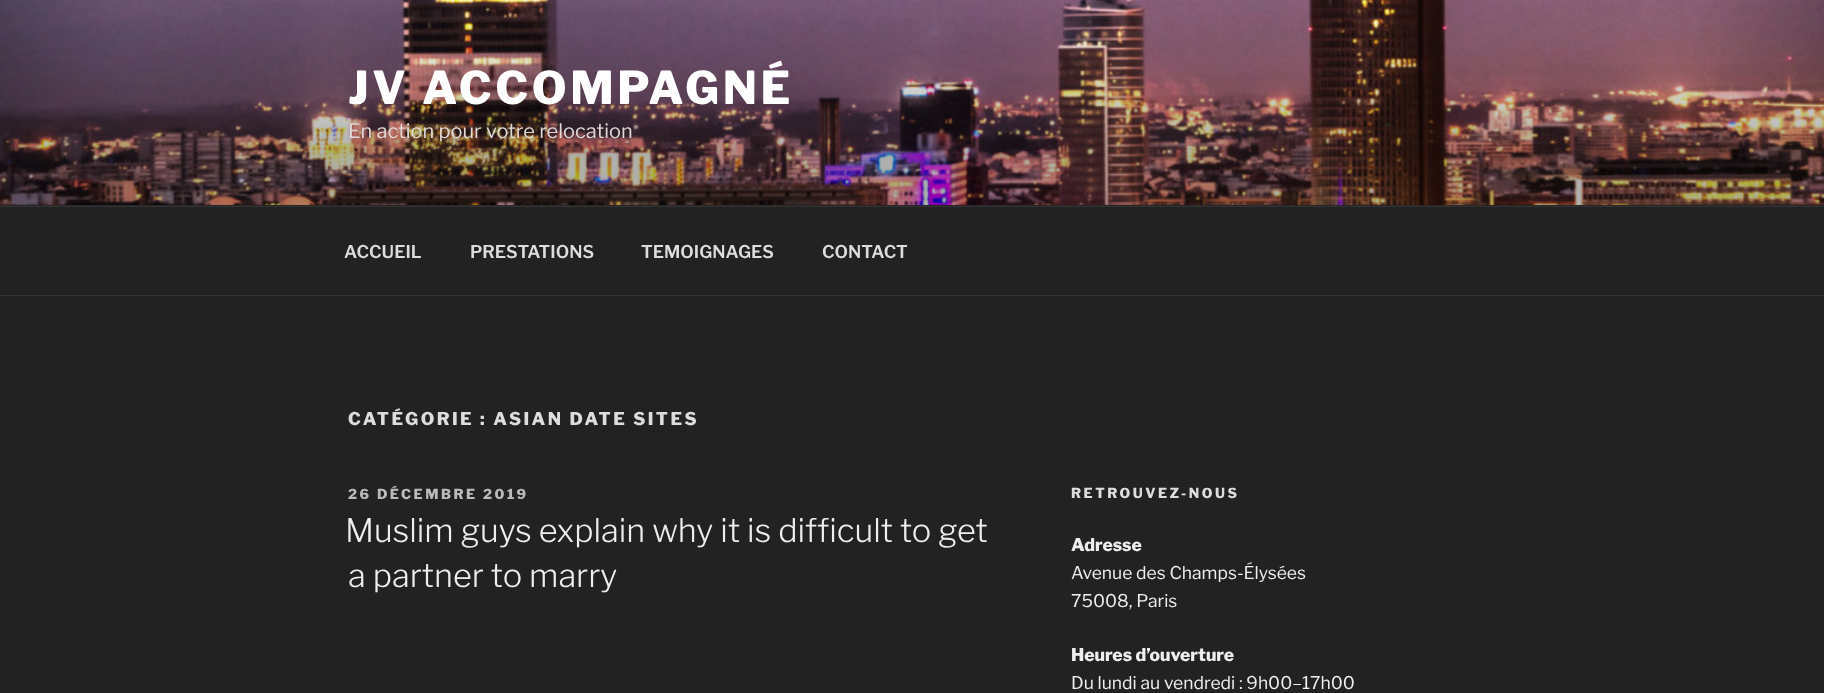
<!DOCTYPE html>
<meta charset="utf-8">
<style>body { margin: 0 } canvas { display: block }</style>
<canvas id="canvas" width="1824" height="693"></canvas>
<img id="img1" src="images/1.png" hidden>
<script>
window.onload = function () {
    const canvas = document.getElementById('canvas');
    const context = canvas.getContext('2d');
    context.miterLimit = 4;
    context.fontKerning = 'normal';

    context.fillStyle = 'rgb(34, 34, 34)';
    context.fillRect(0, 0, 1824, 693);
    context.fillStyle = 'rgb(38, 38, 38)';
    context.fillRect(0, 205, 1824, 1);
    context.drawImage(document.getElementById('img1'), 0, 0, 1824, 205);
    context.fillStyle = 'rgb(51, 51, 51)';
    context.fillRect(0, 206, 1824, 1);
    context.fillRect(0, 295, 1824, 1);
    context.letterSpacing = '3.6px';
    context.font = '800 45px Libre Franklin';
    context.fillStyle = 'rgb(255, 255, 255)';
    context.fillText('JV ACCOMPAGNÉ', 348, 104);
    context.letterSpacing = '0px';
    context.font = '20px Libre Franklin';
    context.fillStyle = 'rgb(223, 217, 215)';
    context.fillText('En action pour votre relocation', 348, 138);
    context.font = '600 17.5px Libre Franklin';
    context.fillStyle = 'rgb(221, 221, 221)';
    context.fillText('ACCUEIL', 344, 258);
    context.fillText('PRESTATIONS', 470, 258);
    context.fillText('TEMOIGNAGES', 641, 258);
    context.fillText('CONTACT', 822, 258);
    context.letterSpacing = '2.45px';
    context.font = '800 17.5px Libre Franklin';
    context.fillText('CATÉGORIE : ASIAN DATE SITES', 348, 425);
    context.letterSpacing = '2.5px';
    context.font = '800 13.75px Libre Franklin';
    context.fillStyle = 'rgb(187, 187, 187)';
    context.fillText('26 DÉCEMBRE 2019', 348, 499);
    context.letterSpacing = '0px';
    context.font = '300 32.5px Libre Franklin';
    context.fillStyle = 'rgb(238, 238, 238)';
    context.fillText('Muslim guys explain why it is difficult to get', 345, 542);
    context.fillText('a partner to marry', 348, 587);
    context.letterSpacing = '2.5px';
    context.font = '800 13.75px Libre Franklin';
    context.fillStyle = 'rgb(221, 221, 221)';
    context.fillText('RETROUVEZ-NOUS', 1071, 498);
    context.letterSpacing = '0px';
    context.font = '800 17.5px Libre Franklin';
    context.fillStyle = 'rgb(238, 238, 238)';
    context.fillText('Adresse', 1071, 551);
    context.font = '17.5px Libre Franklin';
    context.fillText('Avenue des Champs-Élysées', 1071, 579);
    context.fillText('75008, Paris', 1071, 607);
    context.font = '800 17.5px Libre Franklin';
    context.fillText('Heures d’ouverture', 1071, 661);
    context.font = '17.5px Libre Franklin';
    context.fillText('Du lundi au vendredi : 9h00–17h00', 1071, 689);
};
</script>
